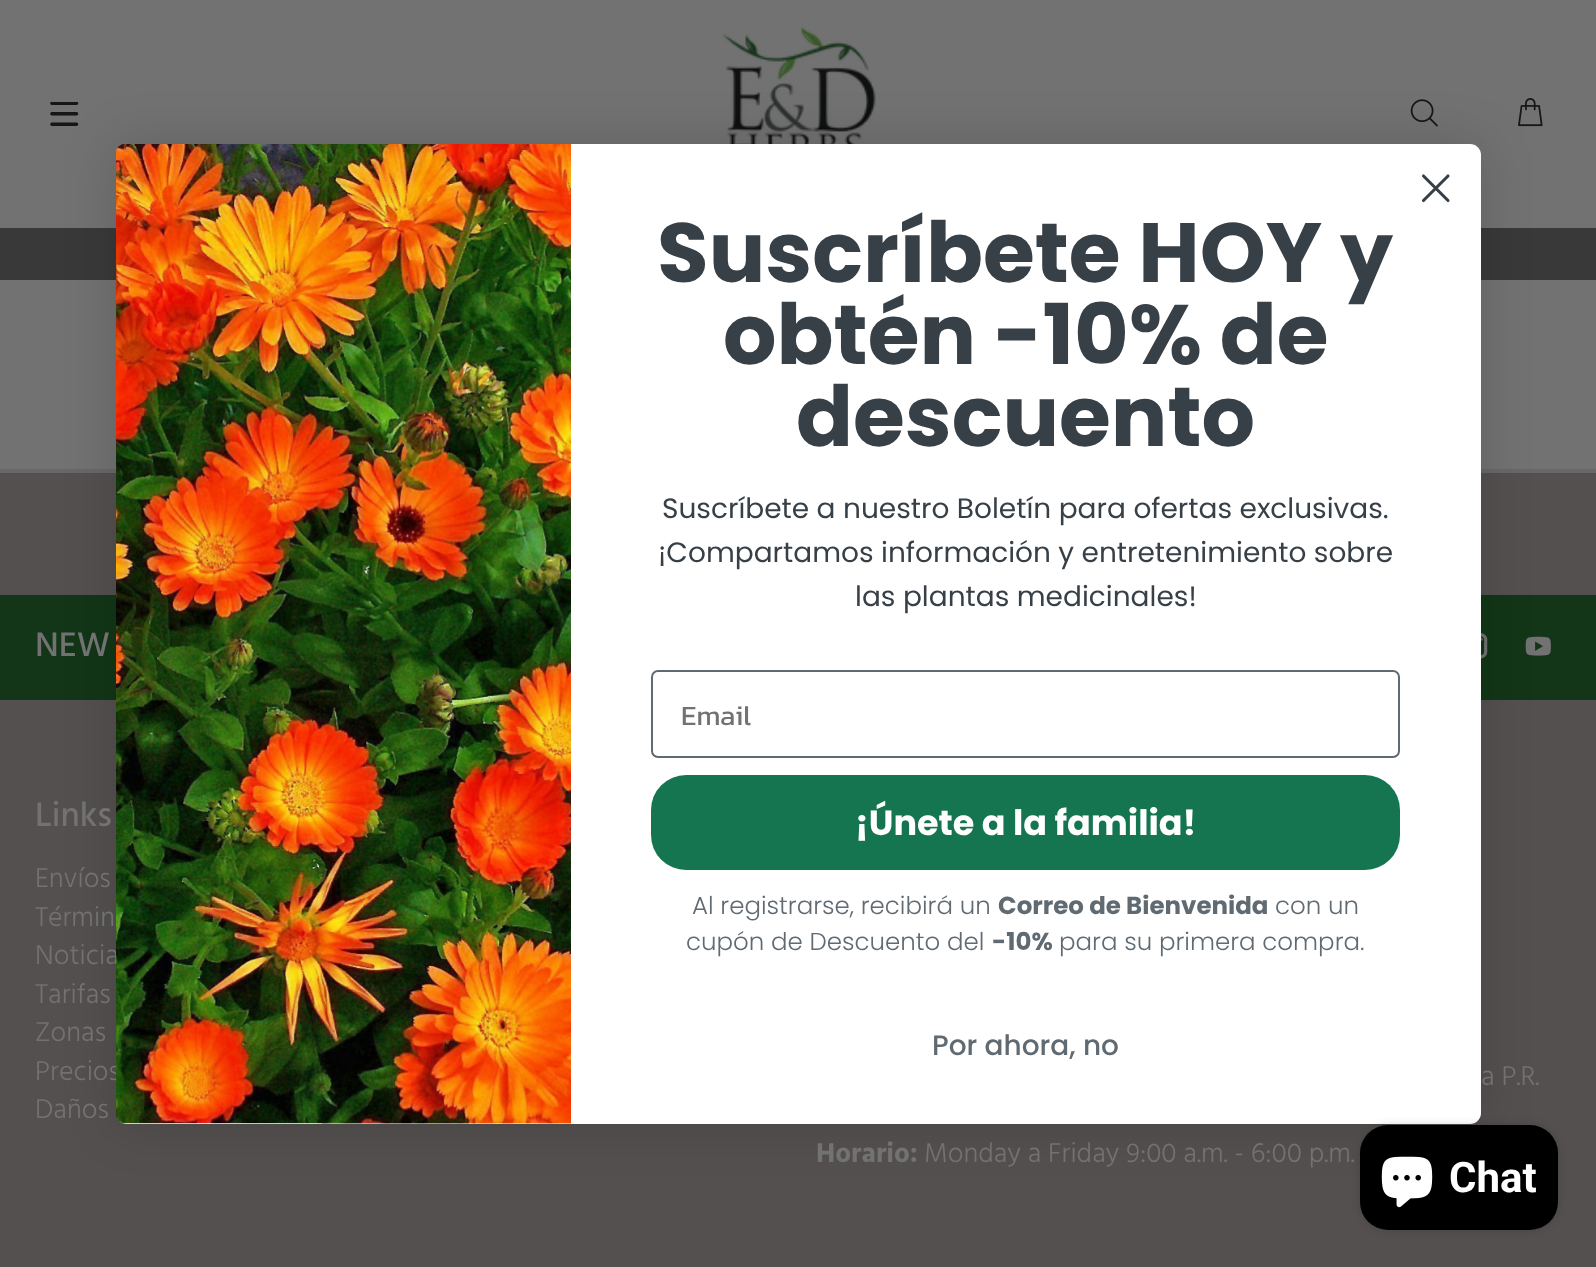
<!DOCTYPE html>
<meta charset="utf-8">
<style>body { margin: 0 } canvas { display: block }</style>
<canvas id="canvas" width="1596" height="1267"></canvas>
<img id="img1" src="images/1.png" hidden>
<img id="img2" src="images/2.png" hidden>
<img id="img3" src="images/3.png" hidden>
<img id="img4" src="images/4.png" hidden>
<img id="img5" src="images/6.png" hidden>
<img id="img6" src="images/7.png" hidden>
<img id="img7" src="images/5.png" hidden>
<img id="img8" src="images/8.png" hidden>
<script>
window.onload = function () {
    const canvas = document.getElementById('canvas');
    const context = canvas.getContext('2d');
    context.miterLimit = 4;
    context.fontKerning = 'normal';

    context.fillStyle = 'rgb(114, 114, 114)';
    context.fillRect(0, 0, 1596, 1267);
    context.drawImage(document.getElementById('img1'), 50, 102, 29, 24);
    context.drawImage(document.getElementById('img2'), 722, 26, 154, 118);
    context.drawImage(document.getElementById('img3'), 1410, 99, 28, 28);
    context.drawImage(document.getElementById('img4'), 1518, 98, 25, 29);
    context.fillStyle = 'rgb(57, 57, 57)';
    context.fillRect(0, 228, 1596, 52);
    context.fillStyle = 'rgb(84, 80, 80)';
    context.fillRect(0, 473, 1596, 794);
    context.fillStyle = 'rgb(105, 104, 104)';
    context.fillRect(0, 469, 1596, 4);
    context.fillStyle = 'rgb(18, 54, 23)';
    context.fillRect(0, 595, 1596, 105);
    context.drawImage(document.getElementById('img5'), 1481, 633, 7, 26);
    context.drawImage(document.getElementById('img6'), 1525, 636, 26, 20);
    context.fillStyle = 'rgba(0, 0, 0, 0.15)';
    context.filter = 'blur(26px)';
    context.beginPath();
    context.roundRect(116, 144, 1365, 980, 11);
    context.fill();
    context.filter = 'none';
    context.font = '500 35px Hind';
    context.fillStyle = 'rgb(114, 114, 114)';
    context.fillText('NEW', 35, 656);
    context.fillText('Links', 35, 826);
    context.font = '300 28px Hind';
    context.fillText('Envíos', 35, 887);
    context.fillText('Términ', 35, 926);
    context.fillText('Noticia', 35, 964);
    context.fillText('Tarifas', 35, 1003);
    context.fillText('Zonas', 35, 1041);
    context.fillText('Precios', 35, 1080);
    context.fillStyle = 'rgb(255, 255, 255)';
    context.beginPath();
    context.roundRect(116, 144, 1365, 980, 11);
    context.fill();
    context.beginPath();
    context.moveTo(1423.5, 176);
    context.lineTo(1448, 200.5);
    context.moveTo(1423.5, 200.5);
    context.lineTo(1448, 176);
    context.closePath();
    context.strokeStyle = 'rgb(55, 63, 71)';
    context.lineWidth = 3.1;
    context.lineCap = 'round';
    context.lineJoin = 'round';
    context.stroke();
    context.font = '500 28px Poppins';
    context.fillStyle = 'rgb(96, 106, 114)';
    context.fillText('Por ahora, no', 932, 1055);
    context.font = '300 24.5px Poppins';
    context.fillText('para su primera compra.', 1059, 950);
    context.font = 'bold 24.5px Poppins';
    context.fillText('-10%', 992, 950);
    context.font = '300 24.5px Poppins';
    context.fillText('cupón de Descuento del', 686, 950);
    context.fillText('con un', 1275, 914);
    context.font = 'bold 24.5px Poppins';
    context.fillText('Correo de Bienvenida', 998, 914);
    context.font = '300 24.5px Poppins';
    context.fillText('Al registrarse, recibirá un', 692, 914);
    context.fillStyle = 'rgb(21, 117, 81)';
    context.beginPath();
    context.roundRect(651, 775, 749, 95, 35);
    context.fill();
    context.font = 'bold 35px Poppins';
    context.fillStyle = 'rgb(255, 255, 255)';
    context.fillText('¡Únete a la familia!', 855, 835);
    context.beginPath();
    context.roundRect(652, 671, 747, 86, 6);
    context.strokeStyle = 'rgb(96, 106, 114)';
    context.lineWidth = 2;
    context.lineJoin = 'miter';
    context.stroke();
    context.font = '28px Kanit';
    context.fillStyle = 'rgb(114, 114, 114)';
    context.fillText('Email', 681, 725);
    context.font = '28px Poppins';
    context.fillStyle = 'rgb(55, 63, 71)';
    context.fillText('las plantas medicinales!', 855, 606);
    context.fillText('¡Compartamos información y entretenimiento sobre', 658, 562);
    context.fillText('Suscríbete a nuestro Boletín para ofertas exclusivas.', 662, 518);
    context.font = 'bold 84px Poppins';
    context.fillText('descuento', 796, 446);
    context.fillText('obtén -10% de', 723, 364);
    context.fillText('Suscríbete HOY y', 657, 282);
    context.drawImage(document.getElementById('img7'), 116, 144, 455, 980);
    context.font = '300 28px Hind';
    context.fillStyle = 'rgb(114, 114, 114)';
    context.fillText('Daños', 35, 1118);
    context.fillText('a P.R.', 1481, 1085);
    context.font = 'bold 28px Hind';
    context.fillText('Horario:', 816, 1162);
    context.font = '300 28px Hind';
    context.fillText('Monday a Friday 9:00 a.m. - 6:00 p.m.', 924, 1162);
    context.fillStyle = 'rgba(0, 0, 0, 0.15)';
    context.filter = 'blur(4.5px)';
    context.beginPath();
    context.roundRect(1360, 1125, 198, 105, 28);
    context.fill();
    context.filter = 'none';
    context.fillStyle = 'rgb(0, 0, 0)';
    context.beginPath();
    context.roundRect(1360, 1125, 198, 105, 28);
    context.fill();
    context.drawImage(document.getElementById('img8'), 1381, 1156, 52, 52);
    context.font = 'bold 42px Roboto';
    context.fillStyle = 'rgb(255, 255, 255)';
    context.fillText('Chat', 1449, 1192);
};
</script>
